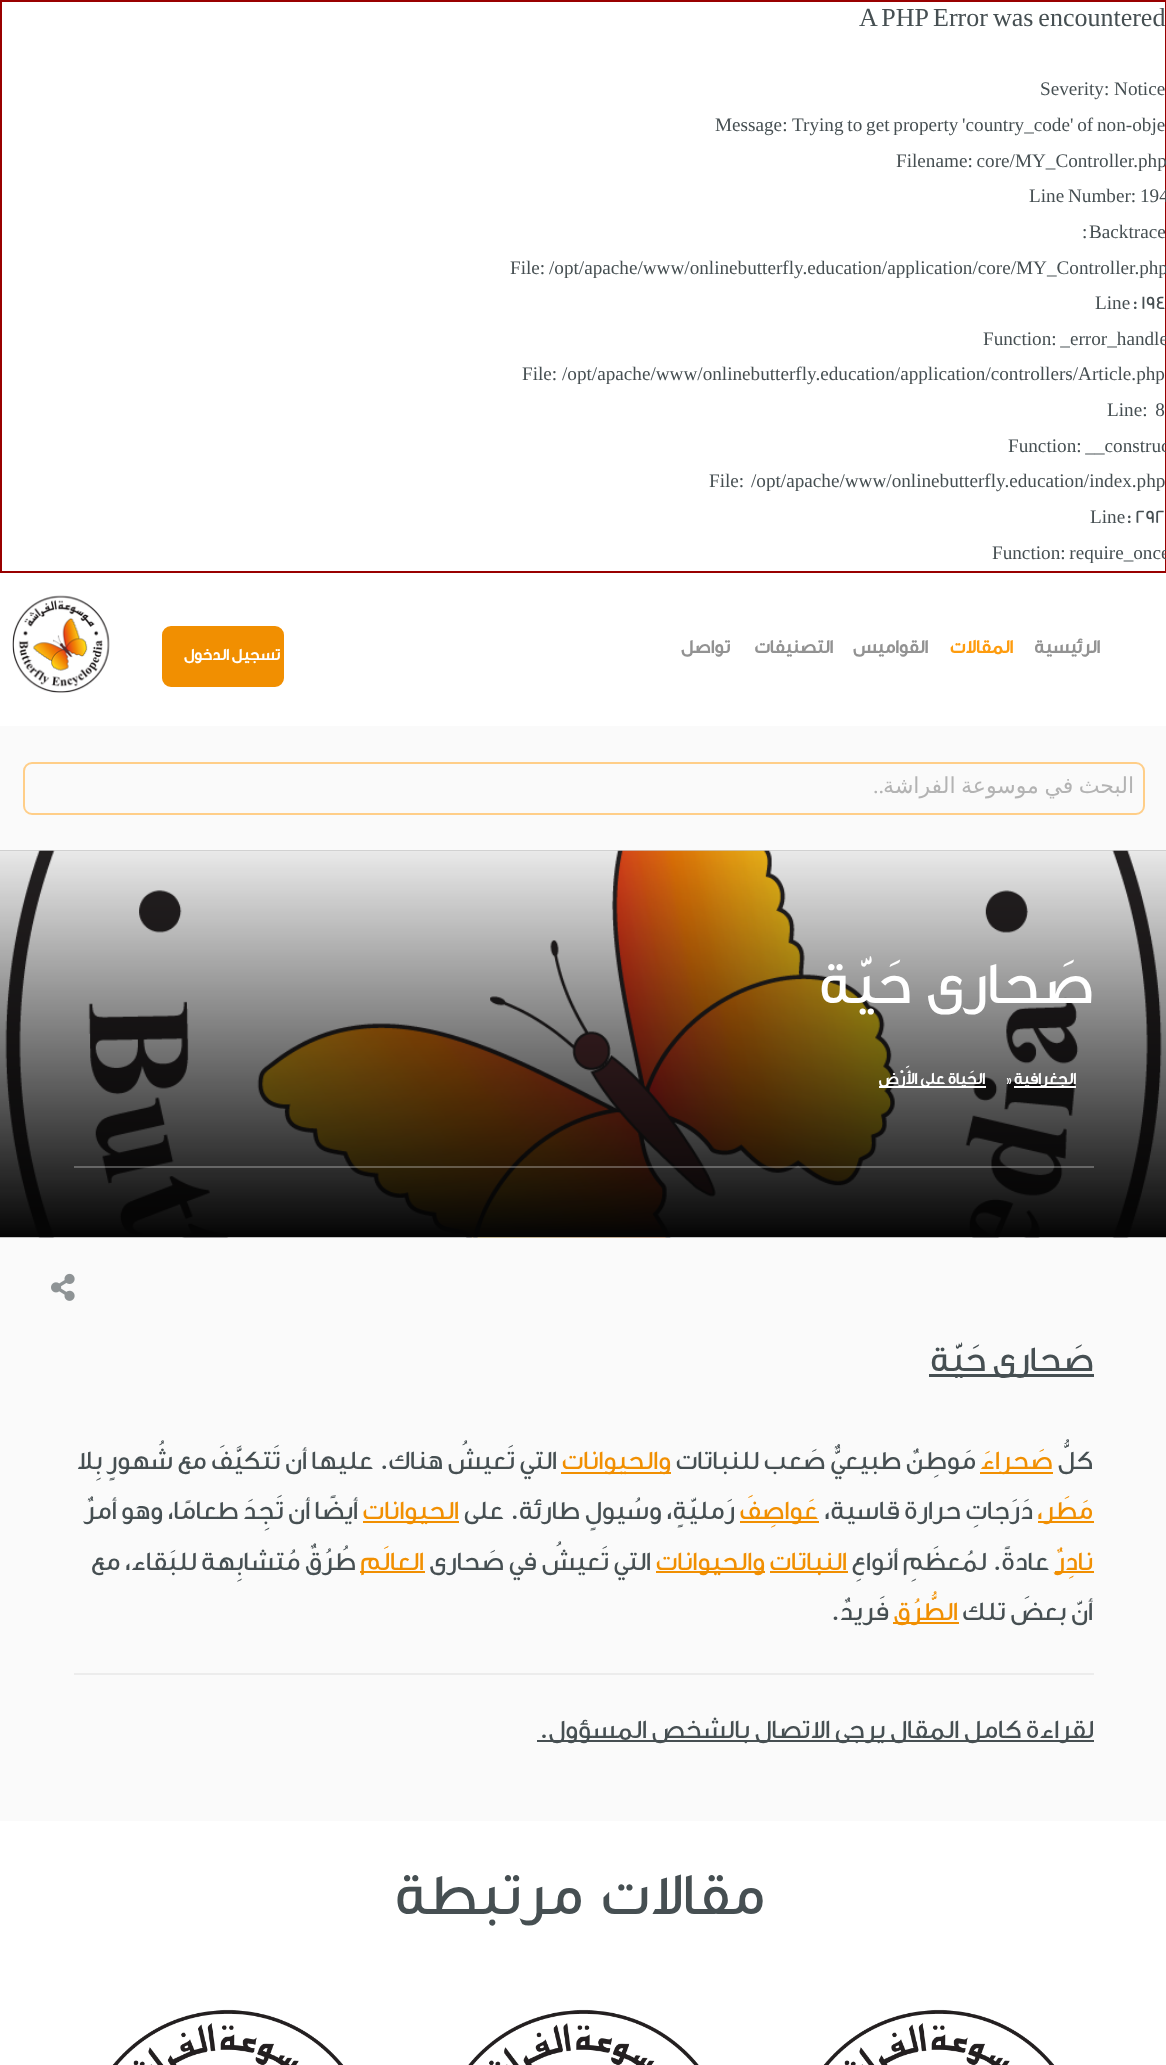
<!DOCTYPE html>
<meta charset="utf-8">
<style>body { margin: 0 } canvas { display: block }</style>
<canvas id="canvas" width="1166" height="2065"></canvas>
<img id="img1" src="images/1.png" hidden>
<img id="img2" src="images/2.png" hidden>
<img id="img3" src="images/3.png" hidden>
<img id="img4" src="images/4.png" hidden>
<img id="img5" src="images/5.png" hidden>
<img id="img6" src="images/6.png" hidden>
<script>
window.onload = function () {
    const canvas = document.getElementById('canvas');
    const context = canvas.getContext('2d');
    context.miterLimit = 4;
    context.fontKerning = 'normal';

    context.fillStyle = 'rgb(255, 255, 255)';
    context.fillRect(0, 0, 1166, 2065);
    context.fillStyle = 'rgb(233, 233, 233)';
    context.fillRect(0, 851, 1166, 387);
    context.strokeStyle = 'rgb(153, 0, 0)';
    context.lineWidth = 2;
    context.strokeRect(1, 1, 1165, 571);
    context.fillStyle = 'rgb(241, 143, 1)';
    context.beginPath();
    context.roundRect(163, 627, 120, 59, 8);
    context.fill();
    context.strokeStyle = 'rgb(241, 143, 1)';
    context.stroke();
    context.drawImage(document.getElementById('img1'), 12, 595, 98, 98);
    context.fillStyle = 'rgb(250, 250, 250)';
    context.fillRect(0, 726, 1166, 125);
    context.beginPath();
    context.roundRect(24, 763, 1120, 51, 8);
    context.strokeStyle = 'rgb(255, 206, 136)';
    context.stroke();
    context.drawImage(document.getElementById('img2'), 0, 850, 1166, 388);
    context.fillStyle = 'rgb(255, 255, 255)';
    context.fillRect(1014, 1086, 62, 2);
    context.fillRect(879, 1086, 107, 2);
    context.fillStyle = 'rgba(236, 236, 236, 0.3)';
    context.fillRect(74, 1166, 1020, 2);
    context.fillStyle = 'rgb(250, 250, 250)';
    context.fillRect(0, 1238, 1166, 583);
    context.drawImage(document.getElementById('img3'), 51, 1273, 24, 28);
    context.fillStyle = 'rgb(70, 79, 82)';
    context.fillRect(929, 1374, 165, 3);
    context.fillStyle = 'rgb(241, 143, 1)';
    context.fillRect(980, 1472, 73, 2);
    context.fillRect(561, 1472, 110, 2);
    context.fillRect(1038, 1521, 56, 2);
    context.fillRect(740, 1521, 79, 2);
    context.fillRect(363, 1521, 96, 2);
    context.fillRect(1055, 1571, 39, 2);
    context.fillRect(770, 1571, 78, 2);
    context.fillRect(656, 1571, 109, 2);
    context.fillRect(360, 1571, 65, 2);
    context.fillRect(893, 1622, 66, 2);
    context.fillStyle = 'rgb(236, 236, 236)';
    context.fillRect(74, 1673, 1020, 2);
    context.fillStyle = 'rgb(70, 79, 82)';
    context.fillRect(537, 1740, 557, 2);
    context.drawImage(document.getElementById('img4'), 823, 2009, 232, 56);
    context.drawImage(document.getElementById('img5'), 468, 2009, 231, 56);
    context.drawImage(document.getElementById('img6'), 112, 2009, 232, 56);
    context.wordSpacing = '-1.5px';
    context.font = '26px Liberation Serif';
    context.fillText('A PHP Error was encountered', 859, 26);
    context.wordSpacing = '0px';
    context.font = '19.2px Liberation Serif';
    context.fillText('Severity: Notice', 1040, 95);
    context.wordSpacing = '-1px';
    context.fillText('Trying to get property \'country_code\' of non-obje', 792, 131);
    context.wordSpacing = '0px';
    context.fillText('Message:', 715, 131);
    context.wordSpacing = '-1px';
    context.fillText('Filename: core/MY_Controller.php', 896, 167);
    context.fillText('Line Number: 194', 1029, 202);
    context.wordSpacing = '0px';
    context.fillText('Backtrace', 1089, 238);
    context.fillText(':', 1082, 238);
    context.wordSpacing = '-1px';
    context.fillText('File: /opt/apache/www/onlinebutterfly.education/application/core/MY_Controller.php', 510, 274);
    context.wordSpacing = '0px';
    context.font = '500 19.2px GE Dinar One';
    context.fillText(': 194', 1131, 309);
    context.font = '19.2px Liberation Serif';
    context.fillText('Line', 1095, 309);
    context.wordSpacing = '-1px';
    context.fillText('Function: _error_handle', 983, 345);
    context.wordSpacing = '0px';
    context.fillText('File: /opt/apache/www/onlinebutterfly.education/application/controllers/Article.php', 522, 380);
    context.wordSpacing = '3px';
    context.fillText('Line: 8', 1107, 416);
    context.wordSpacing = '-1px';
    context.fillText('Function: __construc', 1008, 452);
    context.wordSpacing = '2px';
    context.fillText('File: /opt/apache/www/onlinebutterfly.education/index.php', 709, 487);
    context.wordSpacing = '0px';
    context.font = '500 19.2px GE Dinar One';
    context.fillText(': 292', 1125, 523);
    context.font = '19.2px Liberation Serif';
    context.fillText('Line', 1090, 523);
    context.wordSpacing = '-1px';
    context.fillText('Function: require_once', 992, 559);
    context.letterSpacing = '0.75px';
    context.wordSpacing = '0px';
    context.direction = 'rtl';
    context.font = 'bold 19.2px GE Dinar One';
    context.fillStyle = 'rgb(146, 146, 146)';
    context.fillText('الرئيسية', 1100, 653);
    context.fillStyle = 'rgb(254, 156, 14)';
    context.fillText('المقالات', 1013, 653);
    context.fillStyle = 'rgb(146, 146, 146)';
    context.fillText('القواميس', 928, 653);
    context.fillText('التصنيفات', 833, 653);
    context.fillText('تواصل', 730, 653);
    context.wordSpacing = '-1px';
    context.font = 'bold 16.5px GE Dinar One';
    context.fillStyle = 'rgb(255, 255, 255)';
    context.fillText('تسجيل الدخول', 280, 660);
    context.letterSpacing = '0px';
    context.wordSpacing = '-1.5px';
    context.font = '22px DejaVu Sans';
    context.fillStyle = 'rgb(179, 179, 179)';
    context.fillText('البحث في موسوعة الفراشة', 1134, 793);
    context.wordSpacing = '0px';
    context.font = '22px Liberation Serif';
    context.fillText('..', 884, 793);
    context.letterSpacing = '-0.6px';
    context.wordSpacing = '4px';
    context.font = '500 60.5px GE Dinar One';
    context.fillStyle = 'rgb(255, 255, 255)';
    context.fillText('صَحارى حَيّة', 1094, 1003);
    context.letterSpacing = '0px';
    context.wordSpacing = '0px';
    context.font = 'bold 16.5px GE Dinar One';
    context.fillText('الجغرافية', 1076, 1084);
    context.direction = 'ltr';
    context.font = '500 16.5px GE Dinar One';
    context.fillText('»', 1006, 1084);
    context.direction = 'rtl';
    context.font = 'bold 16.5px GE Dinar One';
    context.fillText('الحَياة على الأَرْض', 985, 1084);
    context.font = '500 36.5px GE Dinar One';
    context.fillStyle = 'rgb(70, 79, 82)';
    context.fillText('صَحارى حَيّة', 1094, 1371);
    context.font = '500 27px GE Dinar One';
    context.fillText('كلُّ', 1093, 1469);
    context.fillStyle = 'rgb(241, 143, 1)';
    context.fillText('صَحراءَ', 1053, 1469);
    context.fillStyle = 'rgb(70, 79, 82)';
    context.fillText('مَوطِنٌ طبيعيٌّ صَعب للنباتات', 976, 1469);
    context.fillStyle = 'rgb(241, 143, 1)';
    context.fillText('والحيوانات', 671, 1469);
    context.fillStyle = 'rgb(70, 79, 82)';
    context.fillText('التي تَعيشُ هناك. عليها أن تَتكيَّفَ مع شُهورٍ بِلا', 557, 1469);
    context.fillStyle = 'rgb(241, 143, 1)';
    context.fillText('مَطَر،', 1093, 1519);
    context.fillStyle = 'rgb(70, 79, 82)';
    context.fillText('دَرَجاتِ حرارة قاسية،', 1033, 1519);
    context.fillStyle = 'rgb(241, 143, 1)';
    context.fillText('عَواصِفَ', 819, 1519);
    context.fillStyle = 'rgb(70, 79, 82)';
    context.fillText('رَمليّةٍ، وسُيولٍ طارئة. على', 735, 1519);
    context.fillStyle = 'rgb(241, 143, 1)';
    context.fillText('الحيوانات', 459, 1519);
    context.fillStyle = 'rgb(70, 79, 82)';
    context.fillText('أيضًا أن تَجِدَ طعامًا، وهو أمرٌ', 358, 1519);
    context.fillStyle = 'rgb(241, 143, 1)';
    context.fillText('نادِرٌ', 1093, 1570);
    context.fillStyle = 'rgb(70, 79, 82)';
    context.fillText('عادةً. لمُعظَمِ أنواعِ', 1050, 1570);
    context.fillStyle = 'rgb(241, 143, 1)';
    context.fillText('النباتات', 847, 1570);
    context.fillText('والحيوانات', 765, 1570);
    context.fillStyle = 'rgb(70, 79, 82)';
    context.fillText('التي تَعيشُ في صَحارى', 651, 1570);
    context.fillStyle = 'rgb(241, 143, 1)';
    context.fillText('العالَم', 424, 1570);
    context.fillStyle = 'rgb(70, 79, 82)';
    context.fillText('طُرُقٌ مُتشابِهة للبَقاء، مع', 356, 1570);
    context.fillText('أنّ بعضَ تلك', 1093, 1620);
    context.fillStyle = 'rgb(241, 143, 1)';
    context.fillText('الطُّرُق', 958, 1620);
    context.fillStyle = 'rgb(70, 79, 82)';
    context.fillText('فَريدٌ.', 889, 1620);
    context.fillText('لقراءة كامل المقال يرجى الاتصال بالشخص المسؤول.', 1094, 1738);
    context.letterSpacing = '-0.6px';
    context.wordSpacing = '8px';
    context.font = '500 60.5px GE Dinar One';
    context.fillText('مقالات مرتبطة', 765, 1914);
};
</script>
